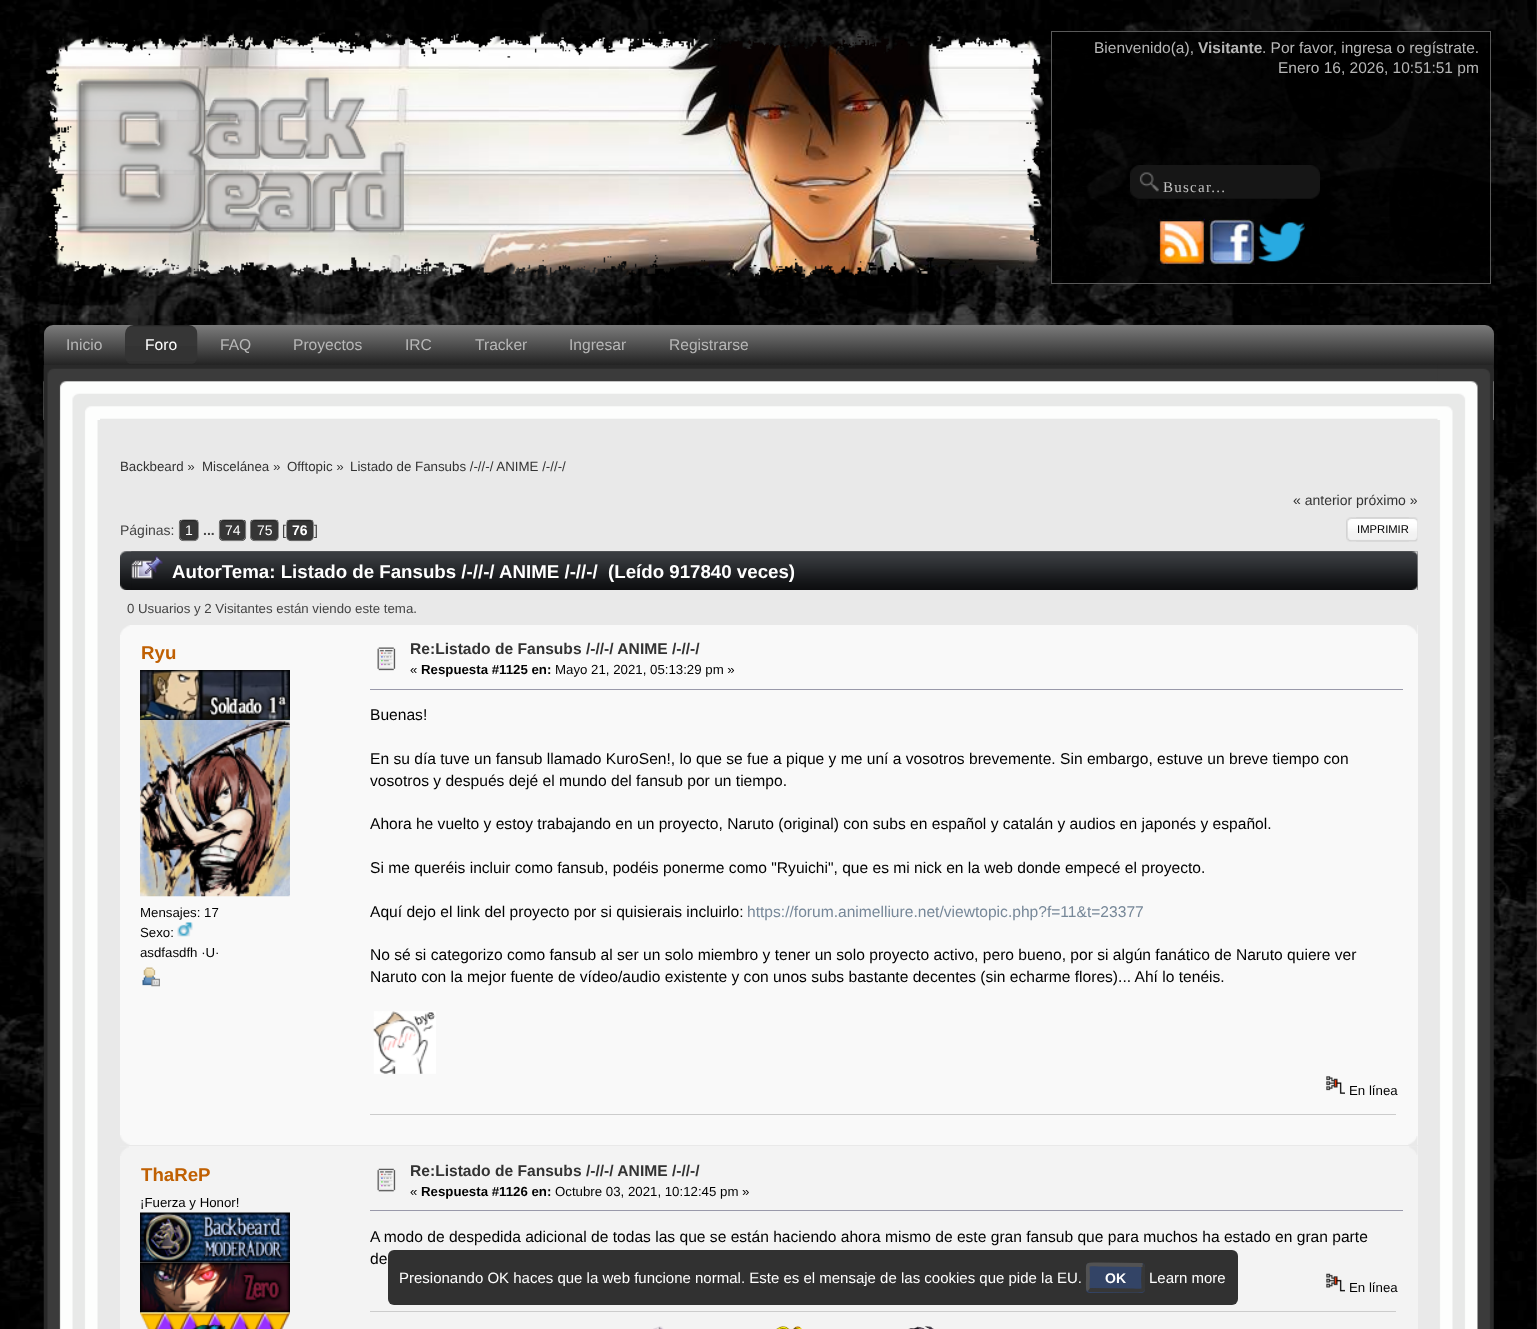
<!DOCTYPE html>
<meta charset="utf-8">
<style>body { margin: 0 } canvas { display: block }</style>
<canvas id="canvas" width="1537" height="1329"></canvas>
<img id="img1" src="images/1.png" hidden>
<img id="img2" src="images/2.png" hidden>
<img id="img3" src="images/3.png" hidden>
<img id="img4" src="images/4.png" hidden>
<img id="img5" src="images/5.png" hidden>
<img id="img6" src="images/6.png" hidden>
<img id="img7" src="images/7.png" hidden>
<img id="img8" src="images/8.png" hidden>
<img id="img9" src="images/9.png" hidden>
<img id="img10" src="images/10.png" hidden>
<img id="img11" src="images/11.png" hidden>
<img id="img12" src="images/12.png" hidden>
<img id="img13" src="images/13.png" hidden>
<img id="img14" src="images/14.png" hidden>
<img id="img15" src="images/15.png" hidden>
<img id="img16" src="images/17.png" hidden>
<img id="img17" src="images/18.png" hidden>
<img id="img18" src="images/19.png" hidden>
<img id="img19" src="images/20.png" hidden>
<img id="img20" src="images/21.png" hidden>
<img id="img21" src="images/22.png" hidden>
<img id="img22" src="images/23.png" hidden>
<img id="img23" src="images/24.png" hidden>
<img id="img24" src="images/25.png" hidden>
<img id="img25" src="images/26.png" hidden>
<img id="img26" src="images/27.png" hidden>
<img id="img27" src="images/28.png" hidden>
<img id="img28" src="images/29.png" hidden>
<img id="img29" src="images/30.png" hidden>
<img id="img30" src="images/31.png" hidden>
<img id="img31" src="images/32.png" hidden>
<img id="img32" src="images/33.png" hidden>
<img id="img33" src="images/34.png" hidden>
<img id="img34" src="images/35.png" hidden>
<img id="img35" src="images/36.png" hidden>
<img id="img36" src="images/37.png" hidden>
<img id="img37" src="images/38.png" hidden>
<img id="img38" src="images/39.png" hidden>
<img id="img39" src="images/40.png" hidden>
<img id="img40" src="images/16.png" hidden>
<script>
window.onload = function () {
    const canvas = document.getElementById('canvas');
    const context = canvas.getContext('2d');
    context.miterLimit = 4;
    context.fontKerning = 'normal';
    let gradient;

    context.fillStyle = 'rgb(255, 255, 255)';
    context.fillRect(0, 0, 1537, 1329);
    context.drawImage(document.getElementById('img1'), 0, 0, 1537, 1329);
    context.drawImage(document.getElementById('img2'), 46, 31, 998, 248);
    context.fillStyle = 'rgba(0, 0, 0, 0.7)';
    context.fillRect(1051, 31, 440, 253);
    context.strokeStyle = 'rgba(128, 128, 128, 0.7)';
    context.strokeRect(1051.5, 31.5, 439, 252);
    context.drawImage(document.getElementById('img3'), 1130, 165, 190, 34);
    context.drawImage(document.getElementById('img4'), 1158, 218, 47, 47);
    context.drawImage(document.getElementById('img5'), 1209, 219, 46, 46);
    context.drawImage(document.getElementById('img6'), 1258, 222, 47, 40);
    gradient = context.createLinearGradient(769, 325, 769, 365);
    gradient.addColorStop(0, 'rgb(124, 124, 124)');
    gradient.addColorStop(1, 'rgb(35, 35, 35)');
    context.fillStyle = gradient;
    context.beginPath();
    context.roundRect(44, 325, 1450, 40, [9, 9, 0, 0]);
    context.fill();
    context.drawImage(document.getElementById('img7'), 125, 325, 73, 39);
    context.drawImage(document.getElementById('img8'), 43, 365, 1451, 55);
    context.drawImage(document.getElementById('img9'), 1437, 365, 57, 55);
    context.drawImage(document.getElementById('img10'), 44, 368, 56, 52);
    context.drawImage(document.getElementById('img11'), 43, 420, 57, 909);
    context.drawImage(document.getElementById('img12'), 1438, 420, 56, 909);
    context.fillStyle = 'rgb(233, 233, 233)';
    context.fillRect(100, 420, 1338, 909);
    context.drawImage(document.getElementById('img13'), 178, 520, 21, 22);
    context.beginPath();
    context.roundRect(179.5, 519.5, 19, 21, 4.5);
    context.strokeStyle = 'rgba(149, 149, 149, 0.7)';
    context.stroke();
    context.drawImage(document.getElementById('img14'), 218, 520, 29, 22);
    context.beginPath();
    context.roundRect(219.5, 519.5, 26, 21, 4.5);
    context.stroke();
    context.drawImage(document.getElementById('img15'), 250, 520, 29, 22);
    context.beginPath();
    context.roundRect(250.5, 519.5, 28, 21, 4.5);
    context.stroke();
    context.drawImage(document.getElementById('img16'), 1346, 517, 63, 25);
    context.drawImage(document.getElementById('img17'), 1356, 517, 62, 25);
    context.drawImage(document.getElementById('img18'), 120, 551, 1298, 39);
    context.drawImage(document.getElementById('img19'), 131, 551, 1287, 39);
    context.drawImage(document.getElementById('img20'), 131, 556, 32, 23);
    context.fillStyle = 'rgb(249, 249, 249)';
    context.fillRect(120, 625, 1298, 520);
    context.drawImage(document.getElementById('img21'), 120, 625, 10, 10);
    context.drawImage(document.getElementById('img22'), 1407, 625, 11, 9);
    context.drawImage(document.getElementById('img23'), 140, 670, 150, 50);
    context.drawImage(document.getElementById('img24'), 140, 720, 150, 177);
    context.drawImage(document.getElementById('img25'), 177, 922, 16, 15);
    context.drawImage(document.getElementById('img26'), 142, 967, 18, 20);
    context.drawImage(document.getElementById('img27'), 377, 647, 19, 24);
    context.fillStyle = 'rgb(153, 153, 170)';
    context.fillRect(370, 689, 1033, 1);
    context.drawImage(document.getElementById('img28'), 373, 1011, 63, 63);
    context.drawImage(document.getElementById('img29'), 1326, 1076, 19, 18);
    context.fillStyle = 'rgb(204, 204, 204)';
    context.fillRect(370, 1114, 1026, 1);
    context.drawImage(document.getElementById('img30'), 120, 1135, 10, 10);
    context.drawImage(document.getElementById('img31'), 1408, 1136, 10, 9);
    context.fillStyle = 'rgb(243, 243, 243)';
    context.fillRect(120, 1146, 1298, 183);
    context.drawImage(document.getElementById('img32'), 120, 1146, 9, 10);
    context.drawImage(document.getElementById('img33'), 1409, 1146, 9, 9);
    context.drawImage(document.getElementById('img34'), 140, 1212, 150, 51);
    context.drawImage(document.getElementById('img35'), 140, 1262, 150, 51);
    context.drawImage(document.getElementById('img36'), 140, 1312, 150, 17);
    context.drawImage(document.getElementById('img37'), 377, 1168, 19, 24);
    context.fillStyle = 'rgb(153, 153, 170)';
    context.fillRect(370, 1210, 1033, 1);
    context.drawImage(document.getElementById('img38'), 1326, 1273, 19, 19);
    context.fillStyle = 'rgb(204, 204, 204)';
    context.fillRect(370, 1311, 1026, 1);
    context.drawImage(document.getElementById('img39'), 653, 1326, 281, 3);
    context.fillStyle = 'rgba(0, 0, 0, 0.8)';
    context.beginPath();
    context.roundRect(388, 1250, 850, 55, 6);
    context.fill();
    context.fillStyle = 'rgb(51, 68, 102)';
    context.beginPath();
    context.roundRect(1086, 1263, 59, 30, 4);
    context.fill();
    context.beginPath();
    context.moveTo(1142.5, 1265);
    context.bezierCurveTo(1144, 1266.5, 1143, 1275, 1143, 1277.5);
    context.bezierCurveTo(1143, 1292.5, 1146.5, 1290.5, 1132.5, 1290.5);
    context.lineTo(1088.5, 1290);
    context.strokeStyle = 'rgb(55, 55, 55)';
    context.lineWidth = 3.8;
    context.stroke();
    context.beginPath();
    context.moveTo(1088.5, 1290);
    context.bezierCurveTo(1087, 1288.5, 1088, 1280, 1088, 1277.5);
    context.bezierCurveTo(1088, 1262.5, 1085, 1264.5, 1098.5, 1264.5);
    context.lineTo(1142.5, 1265);
    context.strokeStyle = 'rgb(82, 82, 83)';
    context.stroke();
    context.font = '15.5px Liberation Sans';
    context.fillStyle = 'rgb(183, 183, 183)';
    context.fillText('Bienvenido(a),', 1094, 53);
    context.font = 'bold 15.5px Liberation Sans';
    context.fillText('Visitante', 1198, 53);
    context.font = '15.5px Liberation Sans';
    context.fillText('. Por favor, ingresa o regístrate.', 1262, 53);
    context.fillText('Enero 16, 2026, 10:51:51 pm', 1278, 73);
    context.letterSpacing = '1.25px';
    context.font = '15px Liberation Serif';
    context.fillStyle = 'rgb(192, 192, 192)';
    context.fillText('Buscar...', 1163, 192);
    context.letterSpacing = '0px';
    context.font = '15.6px Liberation Sans';
    context.fillStyle = 'rgb(183, 183, 183)';
    context.fillText('Inicio', 66, 350);
    context.fillStyle = 'rgb(255, 255, 255)';
    context.fillText('Foro', 145, 350);
    context.fillStyle = 'rgb(183, 183, 183)';
    context.fillText('FAQ', 220, 350);
    context.fillText('Proyectos', 293, 350);
    context.fillText('IRC', 405, 350);
    context.fillText('Tracker', 475, 350);
    context.fillText('Ingresar', 569, 350);
    context.fillText('Registrarse', 669, 350);
    context.font = '13.3px Liberation Sans';
    context.fillStyle = 'rgb(51, 51, 51)';
    context.fillText('Backbeard »', 120, 471);
    context.fillText('Miscelánea »', 202, 471);
    context.fillText('Offtopic »', 287, 471);
    context.fillText('Listado de Fansubs /-//-/ ANIME /-//-/', 350, 471);
    context.font = '14px Liberation Sans';
    context.fillText('« anterior próximo »', 1293, 505);
    context.fillStyle = 'rgb(68, 68, 68)';
    context.fillText('Páginas:', 120, 535);
    context.fillStyle = 'rgb(255, 255, 255)';
    context.fillText('1', 185, 535);
    context.font = 'bold 14px Liberation Sans';
    context.fillStyle = 'rgb(68, 68, 68)';
    context.fillText('...', 203, 535);
    context.font = '14px Liberation Sans';
    context.fillStyle = 'rgb(255, 255, 255)';
    context.fillText('74', 225, 535);
    context.fillText('75', 257, 535);
    context.fillStyle = 'rgb(68, 68, 68)';
    context.fillText('[', 282, 535);
    context.drawImage(document.getElementById('img40'), 286, 520, 28, 22);
    context.beginPath();
    context.roundRect(286.5, 519.5, 27, 21, 4.5);
    context.strokeStyle = 'rgba(149, 149, 149, 0.51)';
    context.lineWidth = 1;
    context.stroke();
    context.font = 'bold 14px Liberation Sans';
    context.fillStyle = 'rgb(255, 255, 255)';
    context.fillText('76', 292, 535);
    context.font = '14px Liberation Sans';
    context.fillStyle = 'rgb(68, 68, 68)';
    context.fillText(']', 314, 535);
    context.font = '11.25px Liberation Sans';
    context.fillStyle = 'rgb(0, 0, 0)';
    context.fillText('IMPRIMIR', 1357, 533);
    context.font = 'bold 18.7px Liberation Sans';
    context.fillStyle = 'rgb(255, 255, 255)';
    context.fillText('AutorTema: Listado de Fansubs /-//-/ ANIME /-//-/  (Leído 917840 veces)', 172, 578);
    context.font = '13.25px Liberation Sans';
    context.fillStyle = 'rgb(68, 68, 68)';
    context.fillText('0 Usuarios y 2 Visitantes están viendo este tema.', 127, 613);
    context.font = 'bold 18.7px Liberation Sans';
    context.fillStyle = 'rgb(192, 96, 2)';
    context.fillText('Ryu', 141, 659);
    context.font = '13.25px Liberation Sans';
    context.fillStyle = 'rgb(0, 0, 0)';
    context.fillText('Mensajes: 17', 140, 917);
    context.fillText('Sexo:', 140, 937);
    context.fillText('asdfasdfh ·U·', 140, 957);
    context.font = 'bold 15.6px Liberation Sans';
    context.fillStyle = 'rgb(51, 51, 51)';
    context.fillText('Re:Listado de Fansubs /-//-/ ANIME /-//-/', 410, 654);
    context.font = '13.25px Liberation Sans';
    context.fillStyle = 'rgb(0, 0, 0)';
    context.fillText('«', 410, 674);
    context.font = 'bold 13.25px Liberation Sans';
    context.fillText('Respuesta #1125 en:', 421, 674);
    context.font = '13.25px Liberation Sans';
    context.fillText('Mayo 21, 2021, 05:13:29 pm »', 555, 674);
    context.font = '15.6px Liberation Sans';
    context.fillText('Buenas!', 370, 720);
    context.fillText('En su día tuve un fansub llamado KuroSen!, lo que se fue a pique y me uní a vosotros brevemente. Sin embargo, estuve un breve tiempo con', 370, 764);
    context.fillText('vosotros y después dejé el mundo del fansub por un tiempo.', 370, 786);
    context.fillText('Ahora he vuelto y estoy trabajando en un proyecto, Naruto (original) con subs en español y catalán y audios en japonés y español.', 370, 829);
    context.fillText('Si me queréis incluir como fansub, podéis ponerme como "Ryuichi", que es mi nick en la web donde empecé el proyecto.', 370, 873);
    context.fillText('Aquí dejo el link del proyecto por si quisierais incluirlo:', 370, 917);
    context.fillStyle = 'rgb(119, 136, 153)';
    context.fillText('https://forum.animelliure.net/viewtopic.php?f=11&t=23377', 747, 917);
    context.fillStyle = 'rgb(0, 0, 0)';
    context.fillText('No sé si categorizo como fansub al ser un solo miembro y tener un solo proyecto activo, pero bueno, por si algún fanático de Naruto quiere ver', 370, 960);
    context.fillText('Naruto con la mejor fuente de vídeo/audio existente y con unos subs bastante decentes (sin echarme flores)... Ahí lo tenéis.', 370, 982);
    context.font = '13.25px Liberation Sans';
    context.fillText('En línea', 1349, 1095);
    context.font = 'bold 18.7px Liberation Sans';
    context.fillStyle = 'rgb(192, 96, 2)';
    context.fillText('ThaReP', 141, 1181);
    context.font = '13.25px Liberation Sans';
    context.fillStyle = 'rgb(0, 0, 0)';
    context.fillText('¡Fuerza y Honor!', 140, 1207);
    context.font = 'bold 15.6px Liberation Sans';
    context.fillStyle = 'rgb(51, 51, 51)';
    context.fillText('Re:Listado de Fansubs /-//-/ ANIME /-//-/', 410, 1176);
    context.font = '13.25px Liberation Sans';
    context.fillStyle = 'rgb(0, 0, 0)';
    context.fillText('«', 410, 1196);
    context.font = 'bold 13.25px Liberation Sans';
    context.fillText('Respuesta #1126 en:', 421, 1196);
    context.font = '13.25px Liberation Sans';
    context.fillText('Octubre 03, 2021, 10:12:45 pm »', 555, 1196);
    context.font = '15.6px Liberation Sans';
    context.fillText('A modo de despedida adicional de todas las que se están haciendo ahora mismo de este gran fansub que para muchos ha estado en gran parte', 370, 1242);
    context.fillText('de', 370, 1264);
    context.font = '13.25px Liberation Sans';
    context.fillText('En línea', 1349, 1292);
    context.font = '15px Liberation Sans';
    context.fillStyle = 'rgb(255, 255, 255)';
    context.fillText('Presionando OK haces que la web funcione normal. Este es el mensaje de las cookies que pide la EU.', 399, 1283);
    context.font = 'bold 14px Liberation Sans';
    context.fillText('OK', 1105, 1283);
    context.font = '15px Liberation Sans';
    context.fillText('Learn more', 1149, 1283);
};
</script>
